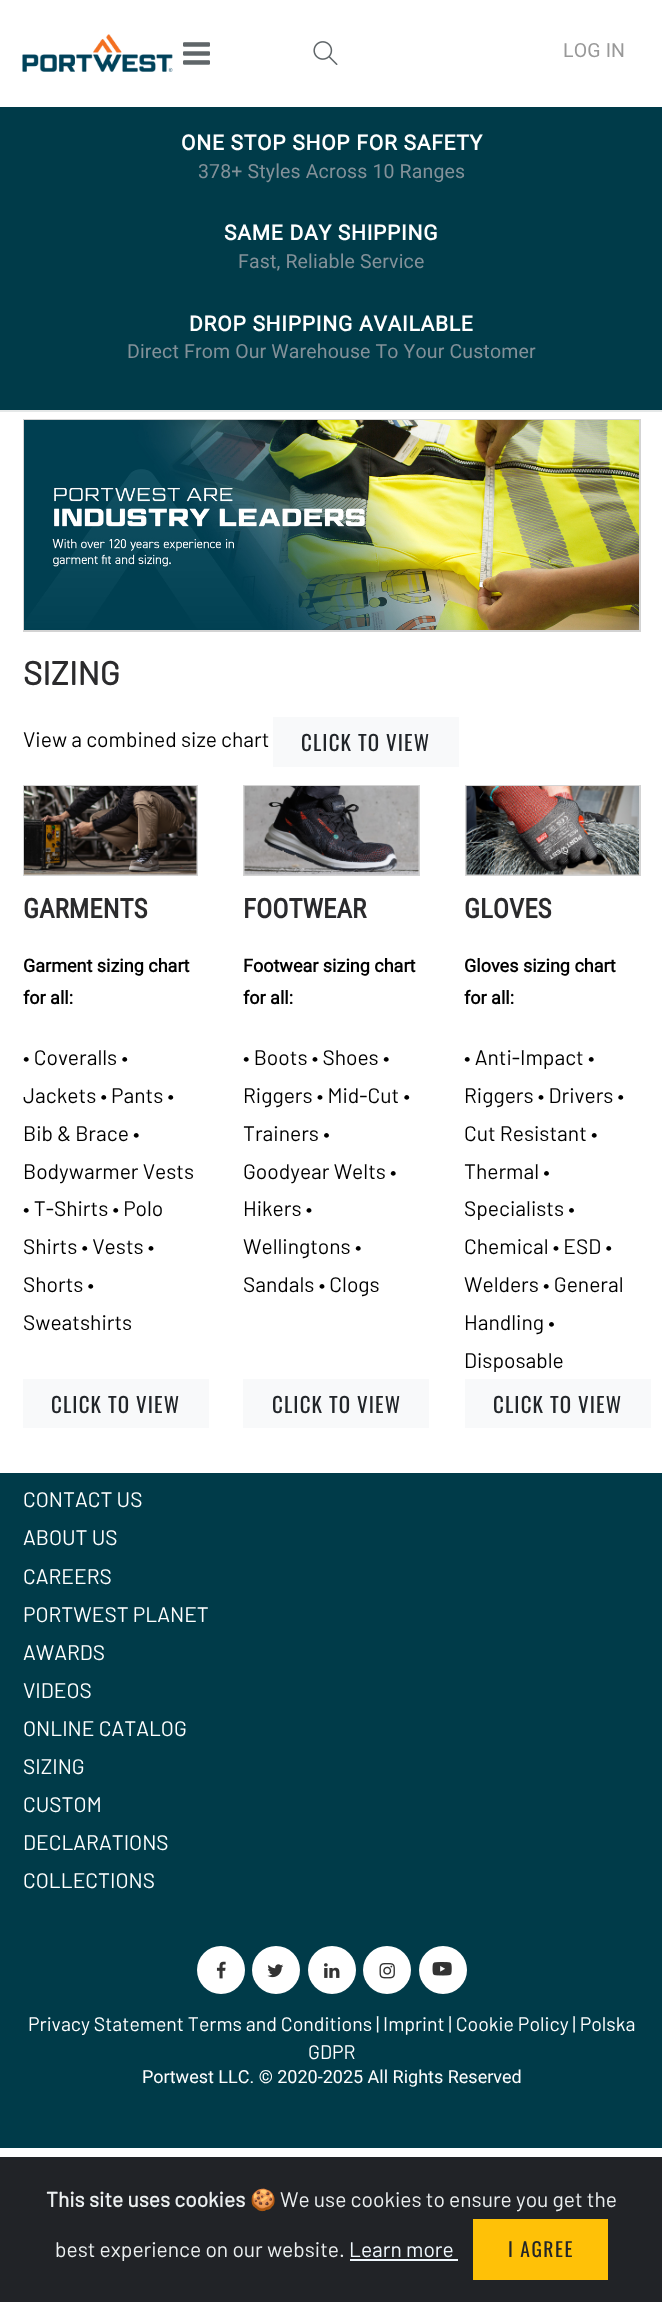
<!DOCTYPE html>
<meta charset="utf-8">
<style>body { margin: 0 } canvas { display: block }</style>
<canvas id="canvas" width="662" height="2302"></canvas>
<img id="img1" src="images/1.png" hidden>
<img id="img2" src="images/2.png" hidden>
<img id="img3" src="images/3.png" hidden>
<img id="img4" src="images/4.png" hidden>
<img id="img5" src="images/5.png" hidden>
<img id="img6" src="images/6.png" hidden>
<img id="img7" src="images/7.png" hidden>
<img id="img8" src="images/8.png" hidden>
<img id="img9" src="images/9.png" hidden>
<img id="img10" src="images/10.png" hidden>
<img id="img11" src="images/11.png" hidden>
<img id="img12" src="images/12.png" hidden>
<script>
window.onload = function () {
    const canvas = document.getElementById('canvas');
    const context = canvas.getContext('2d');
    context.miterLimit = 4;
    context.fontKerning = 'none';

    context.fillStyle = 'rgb(255, 255, 255)';
    context.fillRect(0, 0, 662, 2302);
    context.drawImage(document.getElementById('img1'), 22, 34, 151, 38);
    context.drawImage(document.getElementById('img2'), 183, 42, 27, 23);
    context.drawImage(document.getElementById('img3'), 313, 41, 25, 24);
    context.fillStyle = 'rgb(0, 59, 73)';
    context.fillRect(0, 107, 662, 303);
    context.fillStyle = 'rgb(229, 232, 232)';
    context.fillRect(0, 410, 662, 2);
    context.strokeStyle = 'rgb(211, 211, 211)';
    context.lineWidth = 2;
    context.strokeRect(24, 420, 616, 211);
    context.drawImage(document.getElementById('img4'), 24, 420, 615, 210);
    context.fillStyle = 'rgb(248, 249, 250)';
    context.fillRect(273, 717, 186, 50);
    context.strokeRect(24, 786, 173, 89);
    context.drawImage(document.getElementById('img5'), 24, 786, 173, 89);
    context.strokeRect(244, 786, 175, 89);
    context.drawImage(document.getElementById('img6'), 244, 786, 175, 89);
    context.strokeRect(466, 786, 174, 89);
    context.drawImage(document.getElementById('img7'), 466, 786, 173, 89);
    context.fillRect(23, 1379, 186, 49);
    context.fillRect(243, 1379, 186, 49);
    context.fillRect(465, 1379, 186, 49);
    context.fillStyle = 'rgb(0, 59, 73)';
    context.fillRect(0, 1473, 662, 675);
    context.fillStyle = 'rgb(255, 255, 255)';
    context.beginPath();
    context.arc(221, 1970, 24, 0, 2 * Math.PI);
    context.fill();
    context.drawImage(document.getElementById('img8'), 216, 1961, 10, 18);
    context.beginPath();
    context.arc(276, 1970, 24, 0, 2 * Math.PI);
    context.fill();
    context.drawImage(document.getElementById('img9'), 267, 1964, 17, 14);
    context.beginPath();
    context.arc(332, 1970, 24, 0, 2 * Math.PI);
    context.fill();
    context.drawImage(document.getElementById('img10'), 324, 1963, 16, 15);
    context.beginPath();
    context.arc(387, 1970, 24, 0, 2 * Math.PI);
    context.fill();
    context.drawImage(document.getElementById('img11'), 379, 1963, 16, 16);
    context.beginPath();
    context.arc(443, 1970, 24, 0, 2 * Math.PI);
    context.fill();
    context.drawImage(document.getElementById('img12'), 432, 1962, 20, 14);
    context.fillStyle = 'rgb(33, 35, 39)';
    context.fillRect(0, 2157, 662, 145);
    context.fillStyle = 'rgb(240, 248, 255)';
    context.fillRect(350, 2259, 108, 2);
    context.fillStyle = 'rgb(255, 193, 7)';
    context.fillRect(473, 2219, 135, 61);
    context.letterSpacing = '0.15px';
    context.font = '19.5px Roboto';
    context.fillStyle = 'rgb(153, 153, 153)';
    context.fillText('LOG IN', 563, 57);
    context.letterSpacing = '0.75px';
    context.font = 'bold 21px Roboto';
    context.fillStyle = 'rgb(255, 255, 255)';
    context.fillText('ONE STOP SHOP FOR SAFETY', 181, 150);
    context.letterSpacing = '0.15px';
    context.font = '19.5px Roboto';
    context.fillStyle = 'rgb(131, 145, 153)';
    context.fillText('378+ Styles Across 10 Ranges', 198, 178);
    context.letterSpacing = '0.75px';
    context.font = 'bold 21px Roboto';
    context.fillStyle = 'rgb(255, 255, 255)';
    context.fillText('SAME DAY SHIPPING', 224, 240);
    context.letterSpacing = '0.15px';
    context.font = '19.5px Roboto';
    context.fillStyle = 'rgb(131, 145, 153)';
    context.fillText('Fast, Reliable Service', 238, 268);
    context.letterSpacing = '0.75px';
    context.font = 'bold 21px Roboto';
    context.fillStyle = 'rgb(255, 255, 255)';
    context.fillText('DROP SHIPPING AVAILABLE', 189, 331);
    context.letterSpacing = '0.15px';
    context.font = '19.5px Roboto';
    context.fillStyle = 'rgb(131, 145, 153)';
    context.fillText('Direct From Our Warehouse To Your Customer', 127, 358);
    context.letterSpacing = '0px';
    context.font = 'bold 33px Barlow';
    context.fillStyle = 'rgb(43, 43, 45)';
    context.fillText('SIZING', 23, 685);
    context.font = '21px Barlow';
    context.fillStyle = 'rgb(0, 0, 0)';
    context.fillText('View a combined size chart', 23, 747);
    context.letterSpacing = '1.1px';
    context.font = '21px Oswald';
    context.fillStyle = 'rgb(33, 37, 41)';
    context.fillText('CLICK TO VIEW', 301, 751);
    context.letterSpacing = '0px';
    context.font = 'bold 27px Roboto Condensed';
    context.fillStyle = 'rgb(43, 43, 45)';
    context.fillText('GARMENTS', 23, 918);
    context.font = 'bold 18px Roboto';
    context.fillStyle = 'rgb(0, 0, 0)';
    context.fillText('Garment sizing chart', 23, 972);
    context.fillText('for all:', 23, 1004);
    context.font = '21px Barlow';
    context.fillText('• Coveralls •', 23, 1065);
    context.fillText('Jackets • Pants •', 23, 1103);
    context.fillText('Bib & Brace •', 23, 1141);
    context.fillText('Bodywarmer Vests', 23, 1179);
    context.fillText('• T-Shirts • Polo', 23, 1216);
    context.fillText('Shirts • Vests •', 23, 1254);
    context.fillText('Shorts •', 23, 1292);
    context.fillText('Sweatshirts', 23, 1330);
    context.font = 'bold 27px Roboto Condensed';
    context.fillStyle = 'rgb(43, 43, 45)';
    context.fillText('FOOTWEAR', 243, 918);
    context.font = 'bold 18px Roboto';
    context.fillStyle = 'rgb(0, 0, 0)';
    context.fillText('Footwear sizing chart', 243, 972);
    context.fillText('for all:', 243, 1004);
    context.font = '21px Barlow';
    context.fillText('• Boots • Shoes •', 243, 1065);
    context.fillText('Riggers • Mid-Cut •', 243, 1103);
    context.fillText('Trainers •', 243, 1141);
    context.fillText('Goodyear Welts •', 243, 1179);
    context.fillText('Hikers •', 243, 1216);
    context.fillText('Wellingtons •', 243, 1254);
    context.fillText('Sandals • Clogs', 243, 1292);
    context.font = 'bold 27px Roboto Condensed';
    context.fillStyle = 'rgb(43, 43, 45)';
    context.fillText('GLOVES', 464, 918);
    context.font = 'bold 18px Roboto';
    context.fillStyle = 'rgb(0, 0, 0)';
    context.fillText('Gloves sizing chart', 464, 972);
    context.fillText('for all:', 464, 1004);
    context.font = '21px Barlow';
    context.fillText('• Anti-Impact •', 464, 1065);
    context.fillText('Riggers • Drivers •', 464, 1103);
    context.fillText('Cut Resistant •', 464, 1141);
    context.fillText('Thermal •', 464, 1179);
    context.fillText('Specialists •', 464, 1216);
    context.fillText('Chemical • ESD •', 464, 1254);
    context.fillText('Welders • General', 464, 1292);
    context.fillText('Handling •', 464, 1330);
    context.fillText('Disposable', 464, 1368);
    context.letterSpacing = '1.1px';
    context.font = '21px Oswald';
    context.fillStyle = 'rgb(33, 37, 41)';
    context.fillText('CLICK TO VIEW', 51, 1413);
    context.fillText('CLICK TO VIEW', 272, 1413);
    context.fillText('CLICK TO VIEW', 493, 1413);
    context.letterSpacing = '0px';
    context.font = '21px Barlow';
    context.fillStyle = 'rgb(255, 255, 255)';
    context.fillText('CONTACT US', 23, 1507);
    context.fillText('ABOUT US', 23, 1545);
    context.fillText('CAREERS', 23, 1584);
    context.fillText('PORTWEST PLANET', 23, 1622);
    context.fillText('AWARDS', 23, 1660);
    context.fillText('VIDEOS', 23, 1698);
    context.fillText('ONLINE CATALOG', 23, 1736);
    context.fillText('SIZING', 23, 1774);
    context.fillText('CUSTOM', 23, 1812);
    context.fillText('DECLARATIONS', 23, 1850);
    context.fillText('COLLECTIONS', 23, 1888);
    context.font = '19.5px Barlow';
    context.fillText('Privacy Statement Terms and Conditions | Imprint | Cookie Policy | Polska', 28, 2031);
    context.fillText('GDPR', 308, 2059);
    context.font = '18px Roboto';
    context.fillText('Portwest LLC. © 2020-2025 All Rights Reserved', 142, 2083);
    context.font = 'bold 21px Barlow';
    context.fillStyle = 'rgb(236, 240, 241)';
    context.fillText('This site uses cookies', 46, 2207);
    context.font = '21px Noto Color Emoji';
    context.fillText('🍪', 250, 2207);
    context.font = '21px Barlow';
    context.fillText('We use cookies to ensure you get the', 280, 2207);
    context.fillText('best experience on our website.', 55, 2257);
    context.fillStyle = 'rgb(240, 248, 255)';
    context.fillText('Learn more', 349, 2257);
    context.letterSpacing = '1.5px';
    context.font = '19.5px Oswald';
    context.fillStyle = 'rgb(33, 37, 41)';
    context.fillText('I AGREE', 508, 2257);
};
</script>
